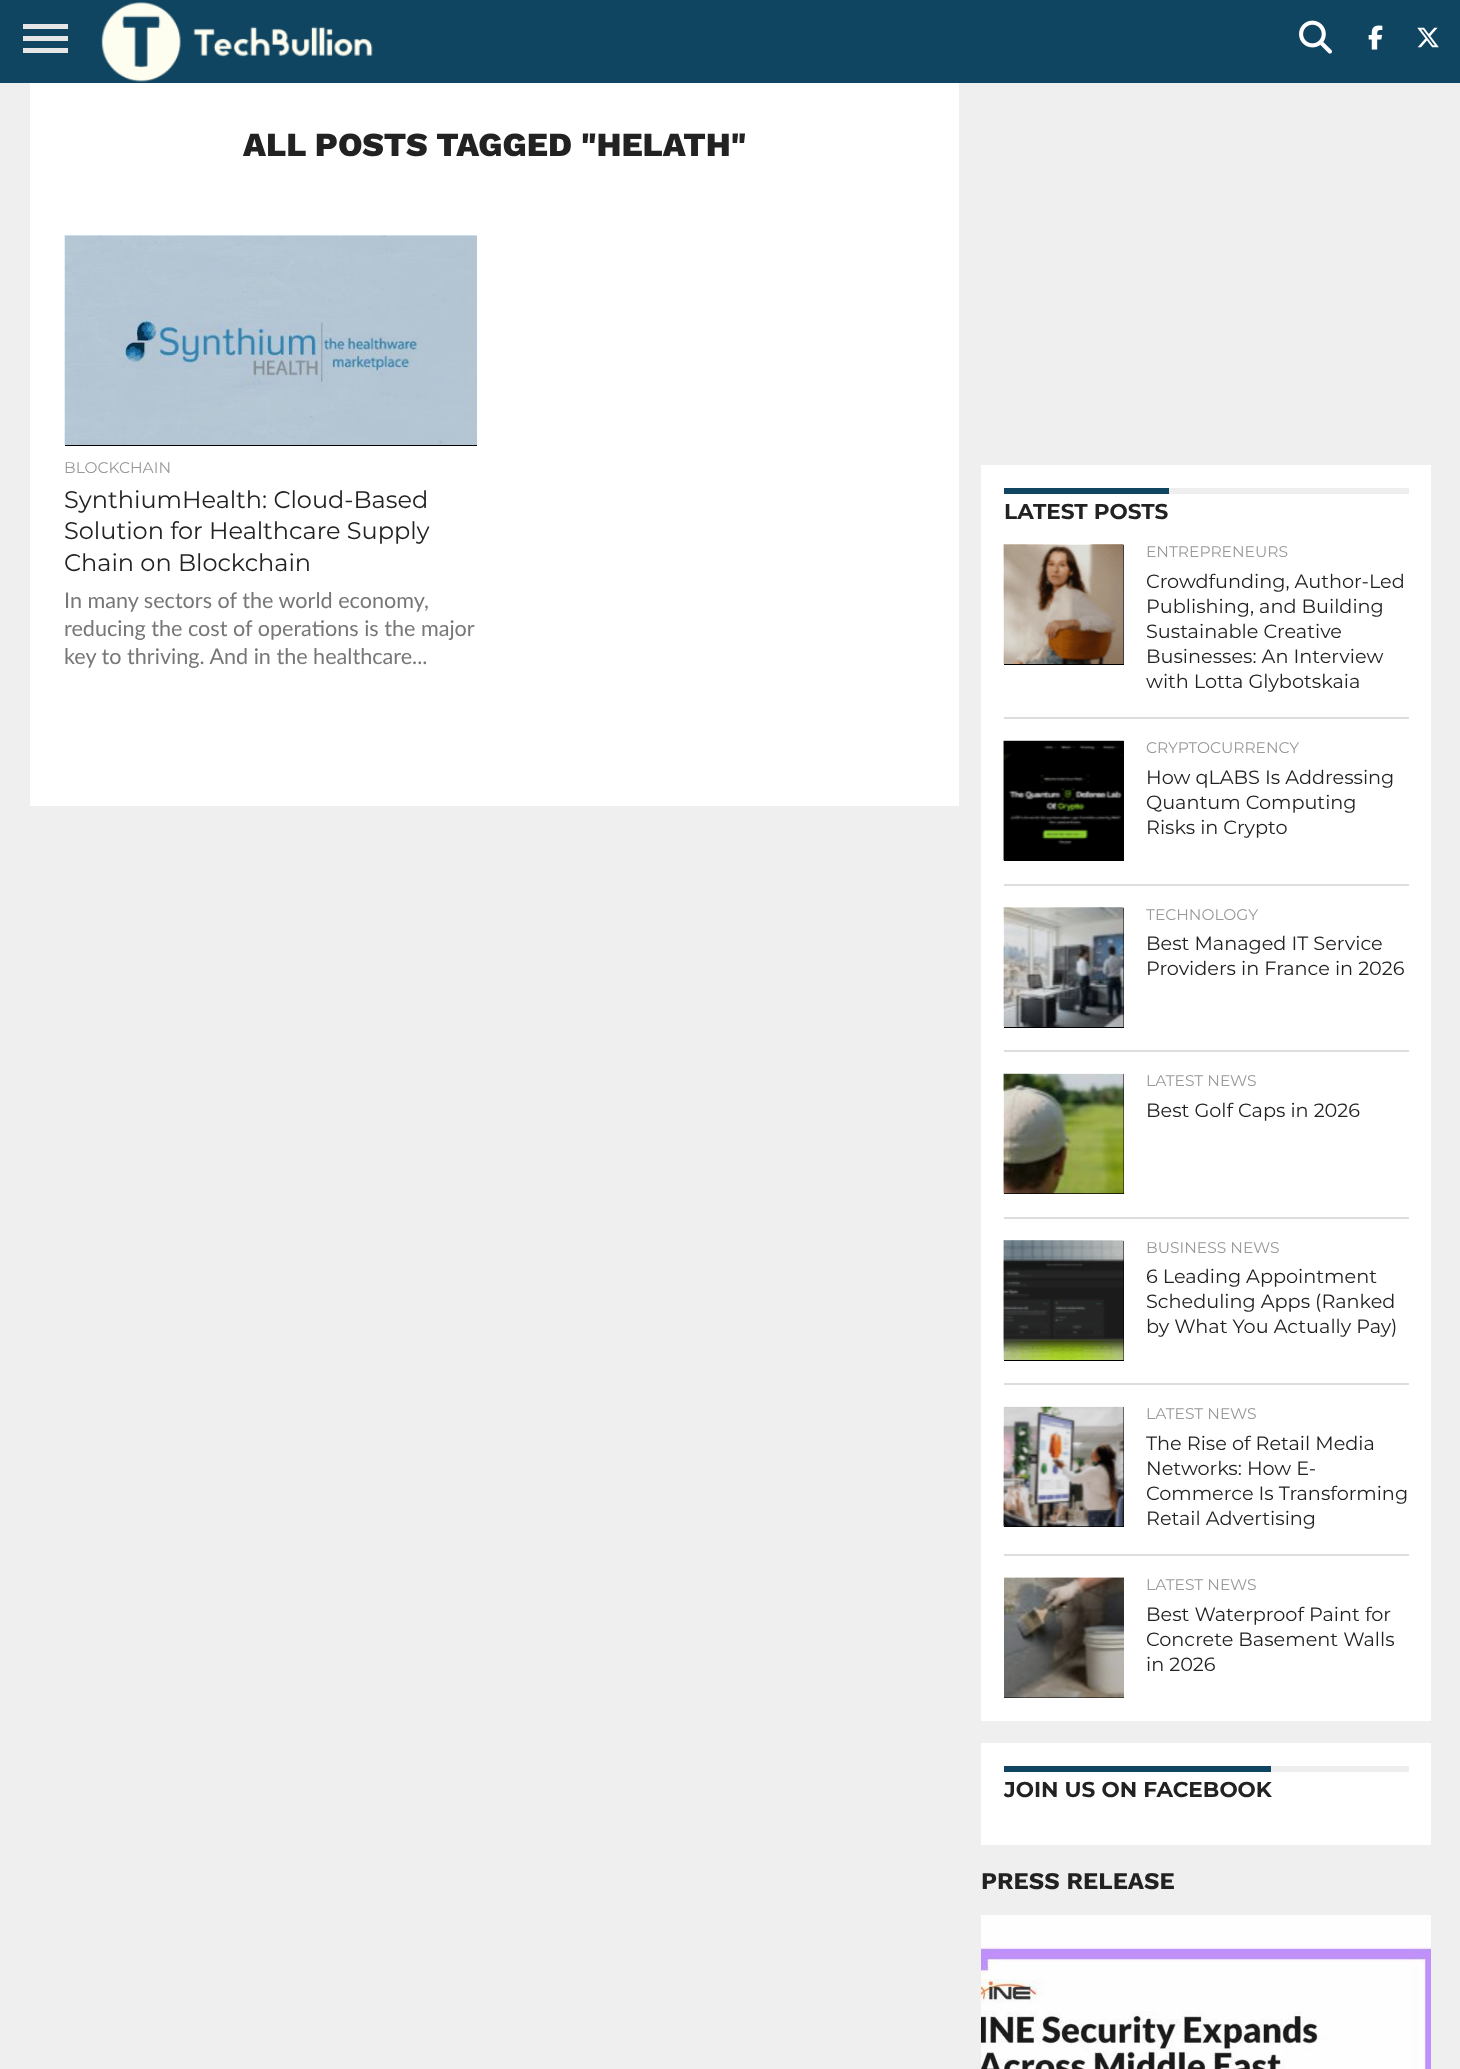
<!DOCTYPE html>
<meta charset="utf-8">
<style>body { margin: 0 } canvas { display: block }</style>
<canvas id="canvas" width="1460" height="2069"></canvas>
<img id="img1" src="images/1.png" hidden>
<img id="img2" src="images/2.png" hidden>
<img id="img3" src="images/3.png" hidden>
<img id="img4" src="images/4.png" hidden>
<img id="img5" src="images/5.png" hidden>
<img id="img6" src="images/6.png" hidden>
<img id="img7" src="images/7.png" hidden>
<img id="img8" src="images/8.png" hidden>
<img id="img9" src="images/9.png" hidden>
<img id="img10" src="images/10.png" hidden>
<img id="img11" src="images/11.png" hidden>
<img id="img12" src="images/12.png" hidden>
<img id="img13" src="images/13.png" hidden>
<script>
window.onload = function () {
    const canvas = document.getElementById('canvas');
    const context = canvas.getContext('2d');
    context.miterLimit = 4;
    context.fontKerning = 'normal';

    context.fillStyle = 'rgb(239, 239, 239)';
    context.fillRect(0, 0, 1460, 2069);
    context.fillStyle = 'rgb(16, 69, 97)';
    context.fillRect(0, 0, 1460, 83);
    context.fillStyle = 'rgb(230, 230, 230)';
    context.fillRect(23, 24, 45, 5);
    context.fillRect(23, 36, 45, 5);
    context.fillRect(23, 48, 45, 5);
    context.drawImage(document.getElementById('img1'), 101, 2, 272, 80);
    context.drawImage(document.getElementById('img2'), 1299, 20, 33, 34);
    context.drawImage(document.getElementById('img3'), 1368, 25, 15, 25);
    context.drawImage(document.getElementById('img4'), 1417, 27, 22, 21);
    context.fillStyle = 'rgb(255, 255, 255)';
    context.fillRect(30, 83, 929, 723);
    context.fillStyle = 'rgb(0, 0, 0)';
    context.fillRect(65, 236, 412, 210);
    context.drawImage(document.getElementById('img5'), 64, 235, 413, 210);
    context.fillStyle = 'rgb(255, 255, 255)';
    context.fillRect(981, 465, 450, 1256);
    context.fillStyle = 'rgb(238, 238, 238)';
    context.fillRect(1169, 488, 240, 6);
    context.fillStyle = 'rgb(16, 69, 97)';
    context.fillRect(1004, 488, 165, 6);
    context.fillStyle = 'rgb(0, 0, 0)';
    context.fillRect(1004, 545, 120, 120);
    context.drawImage(document.getElementById('img6'), 1003, 544, 121, 120);
    context.fillStyle = 'rgb(221, 221, 221)';
    context.fillRect(1004, 717, 405, 2);
    context.fillStyle = 'rgb(0, 0, 0)';
    context.fillRect(1004, 741, 120, 120);
    context.drawImage(document.getElementById('img7'), 1003, 740, 121, 121);
    context.fillStyle = 'rgb(221, 221, 221)';
    context.fillRect(1004, 884, 405, 2);
    context.fillStyle = 'rgb(0, 0, 0)';
    context.fillRect(1004, 908, 120, 120);
    context.drawImage(document.getElementById('img8'), 1003, 907, 121, 120);
    context.fillStyle = 'rgb(221, 221, 221)';
    context.fillRect(1004, 1050, 405, 2);
    context.fillStyle = 'rgb(0, 0, 0)';
    context.fillRect(1004, 1074, 120, 120);
    context.drawImage(document.getElementById('img9'), 1003, 1073, 121, 121);
    context.fillStyle = 'rgb(221, 221, 221)';
    context.fillRect(1004, 1217, 405, 2);
    context.fillStyle = 'rgb(0, 0, 0)';
    context.fillRect(1004, 1241, 120, 120);
    context.drawImage(document.getElementById('img10'), 1003, 1240, 121, 120);
    context.fillStyle = 'rgb(221, 221, 221)';
    context.fillRect(1004, 1383, 405, 2);
    context.fillStyle = 'rgb(0, 0, 0)';
    context.fillRect(1004, 1407, 120, 120);
    context.drawImage(document.getElementById('img11'), 1003, 1406, 121, 121);
    context.fillStyle = 'rgb(221, 221, 221)';
    context.fillRect(1004, 1554, 405, 2);
    context.fillStyle = 'rgb(0, 0, 0)';
    context.fillRect(1004, 1578, 120, 120);
    context.drawImage(document.getElementById('img12'), 1004, 1577, 120, 121);
    context.fillStyle = 'rgb(255, 255, 255)';
    context.fillRect(981, 1743, 450, 102);
    context.fillStyle = 'rgb(238, 238, 238)';
    context.fillRect(1271, 1766, 138, 6);
    context.fillStyle = 'rgb(16, 69, 97)';
    context.fillRect(1004, 1766, 267, 6);
    context.drawImage(document.getElementById('img13'), 981, 1915, 450, 154);
    context.font = '800 33.6px Work Sans';
    context.fillStyle = 'rgb(34, 34, 34)';
    context.fillText('ALL POSTS TAGGED "HELATH"', 243, 156);
    context.font = '15.5px Montserrat';
    context.fillStyle = 'rgb(153, 153, 153)';
    context.fillText('BLOCKCHAIN', 64, 473);
    context.font = '24px Montserrat';
    context.fillStyle = 'rgb(34, 34, 34)';
    context.fillText('SynthiumHealth: Cloud-Based', 64, 508);
    context.fillText('Solution for Healthcare Supply', 64, 539);
    context.fillText('Chain on Blockchain', 64, 571);
    context.font = '21.6px Lato';
    context.fillStyle = 'rgb(119, 119, 119)';
    context.fillText('In many sectors of the world economy,', 64, 608);
    context.fillText('reducing the cost of operations is the major', 64, 636);
    context.fillText('key to thriving. And in the healthcare...', 64, 664);
    context.font = 'bold 21.6px Montserrat';
    context.fillStyle = 'rgb(34, 34, 34)';
    context.fillText('LATEST POSTS', 1004, 519);
    context.font = '15.5px Montserrat';
    context.fillStyle = 'rgb(153, 153, 153)';
    context.fillText('ENTREPRENEURS', 1146, 557);
    context.font = '19.25px Montserrat';
    context.fillStyle = 'rgb(34, 34, 34)';
    context.fillText('Crowdfunding, Author-Led', 1146, 588);
    context.fillText('Publishing, and Building', 1146, 613);
    context.fillText('Sustainable Creative', 1146, 638);
    context.fillText('Businesses: An Interview', 1146, 663);
    context.fillText('with Lotta Glybotskaia', 1146, 688);
    context.font = '15.5px Montserrat';
    context.fillStyle = 'rgb(153, 153, 153)';
    context.fillText('CRYPTOCURRENCY', 1146, 753);
    context.font = '19.25px Montserrat';
    context.fillStyle = 'rgb(34, 34, 34)';
    context.fillText('How qLABS Is Addressing', 1146, 784);
    context.fillText('Quantum Computing', 1146, 809);
    context.fillText('Risks in Crypto', 1146, 834);
    context.font = '15.5px Montserrat';
    context.fillStyle = 'rgb(153, 153, 153)';
    context.fillText('TECHNOLOGY', 1146, 920);
    context.font = '19.25px Montserrat';
    context.fillStyle = 'rgb(34, 34, 34)';
    context.fillText('Best Managed IT Service', 1146, 950);
    context.fillText('Providers in France in 2026', 1146, 975);
    context.font = '15.5px Montserrat';
    context.fillStyle = 'rgb(153, 153, 153)';
    context.fillText('LATEST NEWS', 1146, 1086);
    context.font = '19.25px Montserrat';
    context.fillStyle = 'rgb(34, 34, 34)';
    context.fillText('Best Golf Caps in 2026', 1146, 1117);
    context.font = '15.5px Montserrat';
    context.fillStyle = 'rgb(153, 153, 153)';
    context.fillText('BUSINESS NEWS', 1146, 1253);
    context.font = '19.25px Montserrat';
    context.fillStyle = 'rgb(34, 34, 34)';
    context.fillText('6 Leading Appointment', 1146, 1283);
    context.fillText('Scheduling Apps (Ranked', 1146, 1308);
    context.fillText('by What You Actually Pay)', 1146, 1333);
    context.font = '15.5px Montserrat';
    context.fillStyle = 'rgb(153, 153, 153)';
    context.fillText('LATEST NEWS', 1146, 1419);
    context.font = '19.25px Montserrat';
    context.fillStyle = 'rgb(34, 34, 34)';
    context.fillText('The Rise of Retail Media', 1146, 1450);
    context.fillText('Networks: How E-', 1146, 1475);
    context.fillText('Commerce Is Transforming', 1146, 1500);
    context.fillText('Retail Advertising', 1146, 1525);
    context.font = '15.5px Montserrat';
    context.fillStyle = 'rgb(153, 153, 153)';
    context.fillText('LATEST NEWS', 1146, 1590);
    context.font = '19.25px Montserrat';
    context.fillStyle = 'rgb(34, 34, 34)';
    context.fillText('Best Waterproof Paint for', 1146, 1621);
    context.fillText('Concrete Basement Walls', 1146, 1646);
    context.fillText('in 2026', 1146, 1671);
    context.font = 'bold 21.6px Montserrat';
    context.fillText('JOIN US ON FACEBOOK', 1004, 1797);
    context.font = 'bold 24px Work Sans';
    context.fillText('PRESS RELEASE', 981, 1889);
};
</script>
